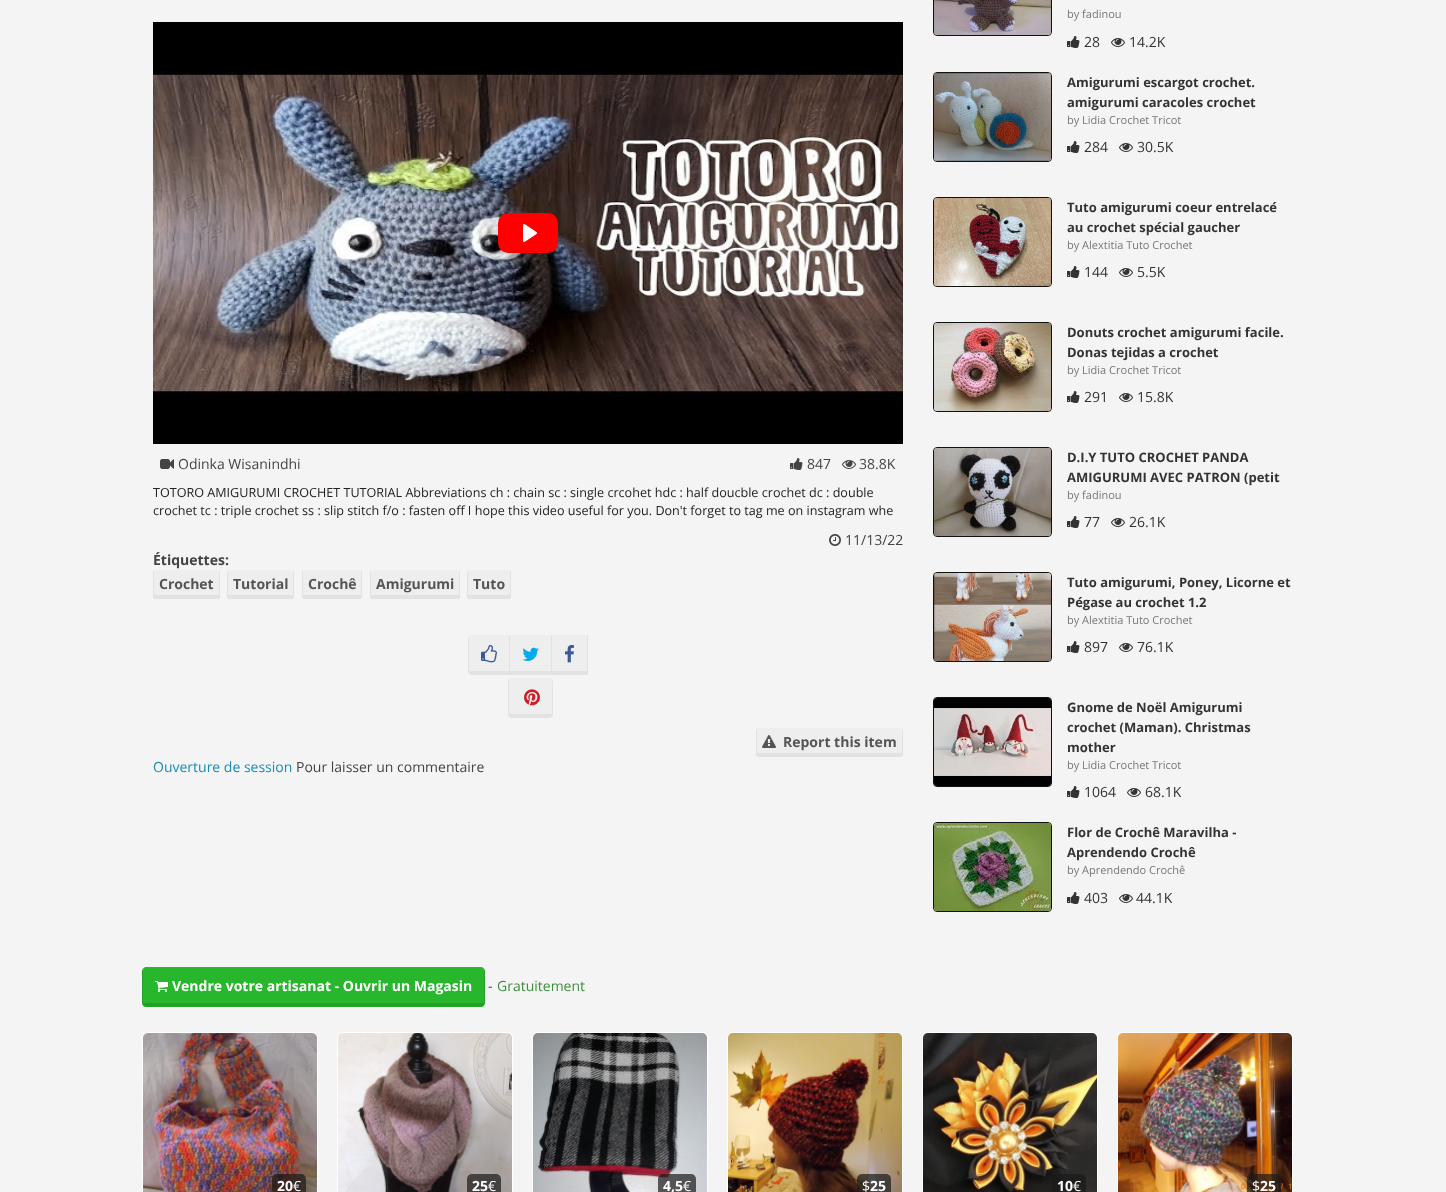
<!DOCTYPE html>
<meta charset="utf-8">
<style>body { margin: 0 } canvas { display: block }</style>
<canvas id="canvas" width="1446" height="1192"></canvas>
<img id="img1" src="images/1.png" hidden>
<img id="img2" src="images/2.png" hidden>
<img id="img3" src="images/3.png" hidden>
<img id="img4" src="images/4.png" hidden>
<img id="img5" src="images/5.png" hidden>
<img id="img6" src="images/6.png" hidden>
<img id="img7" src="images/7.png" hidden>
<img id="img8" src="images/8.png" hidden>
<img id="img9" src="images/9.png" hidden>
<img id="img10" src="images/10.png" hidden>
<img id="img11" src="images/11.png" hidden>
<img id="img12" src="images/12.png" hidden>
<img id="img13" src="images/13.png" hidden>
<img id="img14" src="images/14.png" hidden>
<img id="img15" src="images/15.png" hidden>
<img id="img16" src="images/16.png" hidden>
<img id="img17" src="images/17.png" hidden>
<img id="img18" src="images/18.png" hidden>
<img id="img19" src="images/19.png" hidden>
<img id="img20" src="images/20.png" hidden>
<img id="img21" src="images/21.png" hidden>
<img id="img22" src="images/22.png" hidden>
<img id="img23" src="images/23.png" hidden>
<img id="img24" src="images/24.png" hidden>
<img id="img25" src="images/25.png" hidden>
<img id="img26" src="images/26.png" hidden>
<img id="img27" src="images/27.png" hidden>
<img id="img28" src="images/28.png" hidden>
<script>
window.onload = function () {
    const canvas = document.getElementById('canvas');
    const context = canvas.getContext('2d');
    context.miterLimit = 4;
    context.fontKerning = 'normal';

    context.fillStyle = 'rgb(244, 244, 244)';
    context.fillRect(0, 0, 1446, 1192);
    context.fillStyle = 'rgb(0, 0, 0)';
    context.fillRect(153, 22, 750, 422);
    context.drawImage(document.getElementById('img1'), 153, 71, 750, 326);
    context.fillStyle = 'rgb(255, 0, 0)';
    context.beginPath();
    context.roundRect(498, 213, 60, 40, 10);
    context.fill();
    context.drawImage(document.getElementById('img2'), 523, 224, 14, 18);
    context.drawImage(document.getElementById('img3'), 160, 459, 14, 10);
    context.drawImage(document.getElementById('img4'), 790, 458, 13, 12);
    context.drawImage(document.getElementById('img5'), 842, 460, 14, 9);
    context.drawImage(document.getElementById('img6'), 829, 534, 12, 12);
    context.fillStyle = 'rgb(238, 238, 238)';
    context.beginPath();
    context.moveTo(155, 570);
    context.lineTo(218, 570);
    context.bezierCurveTo(219, 570, 219, 571, 219, 572);
    context.lineTo(219, 595);
    context.lineTo(154, 595);
    context.lineTo(154, 571);
    context.closePath();
    context.fill();
    context.fillStyle = 'rgb(226, 226, 226)';
    context.fillRect(219, 571, 1, 27);
    context.fillRect(154, 595, 65, 4);
    context.fillRect(153, 571, 1, 27);
    context.fillStyle = 'rgb(238, 238, 238)';
    context.beginPath();
    context.moveTo(229, 570);
    context.lineTo(292, 570);
    context.bezierCurveTo(293, 570, 293, 571, 293, 572);
    context.lineTo(293, 595);
    context.lineTo(228, 595);
    context.lineTo(228, 571);
    context.closePath();
    context.fill();
    context.fillStyle = 'rgb(226, 226, 226)';
    context.fillRect(293, 571, 1, 27);
    context.fillRect(228, 595, 65, 4);
    context.fillRect(227, 571, 1, 27);
    context.fillStyle = 'rgb(238, 238, 238)';
    context.beginPath();
    context.moveTo(304, 570);
    context.lineTo(360, 570);
    context.bezierCurveTo(361, 570, 361, 571, 361, 572);
    context.lineTo(361, 595);
    context.lineTo(303, 595);
    context.lineTo(303, 571);
    context.closePath();
    context.fill();
    context.fillStyle = 'rgb(226, 226, 226)';
    context.fillRect(361, 571, 1, 27);
    context.fillRect(303, 595, 58, 4);
    context.fillRect(302, 571, 1, 27);
    context.fillStyle = 'rgb(238, 238, 238)';
    context.beginPath();
    context.moveTo(372, 570);
    context.lineTo(458, 570);
    context.bezierCurveTo(459, 570, 459, 571, 459, 572);
    context.lineTo(459, 595);
    context.lineTo(371, 595);
    context.lineTo(371, 571);
    context.closePath();
    context.fill();
    context.fillStyle = 'rgb(226, 226, 226)';
    context.fillRect(459, 571, 1, 27);
    context.fillRect(371, 595, 88, 4);
    context.fillRect(370, 571, 1, 27);
    context.fillStyle = 'rgb(238, 238, 238)';
    context.beginPath();
    context.moveTo(469, 570);
    context.lineTo(509, 570);
    context.bezierCurveTo(510, 570, 510, 571, 510, 572);
    context.lineTo(510, 595);
    context.lineTo(468, 595);
    context.lineTo(468, 571);
    context.closePath();
    context.fill();
    context.fillStyle = 'rgb(226, 226, 226)';
    context.fillRect(510, 571, 1, 27);
    context.fillRect(468, 595, 42, 4);
    context.fillRect(467, 571, 1, 27);
    context.fillStyle = 'rgb(238, 238, 238)';
    context.beginPath();
    context.moveTo(472, 635);
    context.lineTo(509, 635);
    context.lineTo(509, 671);
    context.lineTo(469, 671);
    context.lineTo(469, 639);
    context.bezierCurveTo(469, 637, 470, 635, 472, 635);
    context.closePath();
    context.fill();
    context.fillStyle = 'rgb(226, 226, 226)';
    context.beginPath();
    context.moveTo(472, 635);
    context.lineTo(510, 635);
    context.lineTo(510, 675);
    context.lineTo(472, 675);
    context.bezierCurveTo(470, 675, 468, 673, 468, 671);
    context.lineTo(468, 639);
    context.bezierCurveTo(468, 637, 470, 635, 472, 635);
    context.closePath();
    context.moveTo(472, 635);
    context.lineTo(509, 635);
    context.lineTo(509, 671);
    context.lineTo(469, 671);
    context.lineTo(469, 639);
    context.bezierCurveTo(469, 637, 470, 635, 472, 635);
    context.closePath();
    context.fill('evenodd');
    context.drawImage(document.getElementById('img7'), 481, 645, 16, 18);
    context.fillStyle = 'rgb(238, 238, 238)';
    context.fillRect(510, 635, 41, 36);
    context.fillStyle = 'rgb(226, 226, 226)';
    context.fillRect(551, 635, 1, 40);
    context.fillRect(509, 671, 43, 4);
    context.drawImage(document.getElementById('img8'), 522, 647, 17, 14);
    context.fillStyle = 'rgb(238, 238, 238)';
    context.fillRect(552, 635, 35, 36);
    context.fillStyle = 'rgb(226, 226, 226)';
    context.fillRect(587, 635, 1, 40);
    context.fillRect(551, 671, 37, 4);
    context.drawImage(document.getElementById('img9'), 565, 645, 9, 18);
    context.fillStyle = 'rgb(238, 238, 238)';
    context.beginPath();
    context.moveTo(512, 678);
    context.lineTo(549, 678);
    context.bezierCurveTo(551, 678, 552, 680, 552, 682);
    context.lineTo(552, 714);
    context.lineTo(509, 714);
    context.lineTo(509, 682);
    context.bezierCurveTo(509, 680, 510, 678, 512, 678);
    context.closePath();
    context.fill();
    context.fillStyle = 'rgb(226, 226, 226)';
    context.beginPath();
    context.moveTo(512, 678);
    context.lineTo(549, 678);
    context.bezierCurveTo(551, 678, 553, 680, 553, 682);
    context.lineTo(553, 714);
    context.bezierCurveTo(553, 716, 551, 718, 549, 718);
    context.lineTo(512, 718);
    context.bezierCurveTo(510, 718, 508, 716, 508, 714);
    context.lineTo(508, 682);
    context.bezierCurveTo(508, 680, 510, 678, 512, 678);
    context.closePath();
    context.moveTo(512, 678);
    context.lineTo(549, 678);
    context.bezierCurveTo(551, 678, 552, 680, 552, 682);
    context.lineTo(552, 714);
    context.lineTo(509, 714);
    context.lineTo(509, 682);
    context.bezierCurveTo(509, 680, 510, 678, 512, 678);
    context.closePath();
    context.fill('evenodd');
    context.drawImage(document.getElementById('img10'), 524, 689, 16, 17);
    context.fillStyle = 'rgb(238, 238, 238)';
    context.beginPath();
    context.moveTo(758, 728);
    context.lineTo(901, 728);
    context.bezierCurveTo(902, 728, 902, 729, 902, 730);
    context.lineTo(902, 753);
    context.lineTo(757, 753);
    context.lineTo(757, 729);
    context.closePath();
    context.fill();
    context.fillStyle = 'rgb(226, 226, 226)';
    context.fillRect(902, 729, 1, 27);
    context.fillRect(757, 753, 145, 4);
    context.fillRect(756, 729, 1, 27);
    context.drawImage(document.getElementById('img11'), 762, 735, 14, 13);
    context.beginPath();
    context.roundRect(933.5, -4.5, 118, 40, 3.5);
    context.strokeStyle = 'rgb(17, 17, 17)';
    context.stroke();
    context.drawImage(document.getElementById('img12'), 934, 0, 117, 35);
    context.drawImage(document.getElementById('img13'), 1067, 36, 13, 12);
    context.drawImage(document.getElementById('img14'), 1111, 38, 14, 9);
    context.beginPath();
    context.roundRect(933.5, 72.5, 118, 89, 3.5);
    context.stroke();
    context.drawImage(document.getElementById('img15'), 934, 73, 117, 88);
    context.drawImage(document.getElementById('img13'), 1067, 141, 13, 12);
    context.drawImage(document.getElementById('img14'), 1119, 143, 14, 9);
    context.beginPath();
    context.roundRect(933.5, 197.5, 118, 89, 3.5);
    context.stroke();
    context.drawImage(document.getElementById('img16'), 934, 198, 117, 88);
    context.drawImage(document.getElementById('img13'), 1067, 266, 13, 12);
    context.drawImage(document.getElementById('img14'), 1119, 268, 14, 9);
    context.beginPath();
    context.roundRect(933.5, 322.5, 118, 89, 3.5);
    context.stroke();
    context.drawImage(document.getElementById('img17'), 934, 323, 117, 88);
    context.drawImage(document.getElementById('img13'), 1067, 391, 13, 12);
    context.drawImage(document.getElementById('img14'), 1119, 393, 14, 9);
    context.beginPath();
    context.roundRect(933.5, 447.5, 118, 89, 3.5);
    context.stroke();
    context.drawImage(document.getElementById('img18'), 934, 448, 117, 88);
    context.drawImage(document.getElementById('img13'), 1067, 516, 13, 12);
    context.drawImage(document.getElementById('img14'), 1111, 518, 14, 9);
    context.beginPath();
    context.roundRect(933.5, 572.5, 118, 89, 3.5);
    context.stroke();
    context.drawImage(document.getElementById('img19'), 934, 573, 117, 88);
    context.drawImage(document.getElementById('img13'), 1067, 641, 13, 12);
    context.drawImage(document.getElementById('img14'), 1119, 643, 14, 9);
    context.beginPath();
    context.roundRect(933.5, 697.5, 118, 89, 3.5);
    context.stroke();
    context.drawImage(document.getElementById('img20'), 934, 698, 117, 88);
    context.drawImage(document.getElementById('img13'), 1067, 786, 13, 12);
    context.drawImage(document.getElementById('img14'), 1127, 788, 14, 9);
    context.beginPath();
    context.roundRect(933.5, 822.5, 118, 89, 3.5);
    context.stroke();
    context.drawImage(document.getElementById('img21'), 934, 823, 117, 88);
    context.drawImage(document.getElementById('img13'), 1067, 892, 13, 12);
    context.drawImage(document.getElementById('img14'), 1119, 894, 14, 9);
    context.fillStyle = 'rgb(40, 182, 44)';
    context.beginPath();
    context.moveTo(146, 967);
    context.lineTo(481, 967);
    context.bezierCurveTo(483, 967, 484, 969, 484, 971);
    context.lineTo(484, 1003);
    context.lineTo(143, 1003);
    context.lineTo(143, 971);
    context.bezierCurveTo(143, 969, 144, 967, 146, 967);
    context.closePath();
    context.fill();
    context.fillStyle = 'rgb(35, 161, 39)';
    context.beginPath();
    context.moveTo(146, 967);
    context.lineTo(481, 967);
    context.bezierCurveTo(483, 967, 485, 969, 485, 971);
    context.lineTo(485, 1003);
    context.bezierCurveTo(485, 1005, 483, 1007, 481, 1007);
    context.lineTo(146, 1007);
    context.bezierCurveTo(144, 1007, 142, 1005, 142, 1003);
    context.lineTo(142, 971);
    context.bezierCurveTo(142, 969, 144, 967, 146, 967);
    context.closePath();
    context.moveTo(146, 967);
    context.lineTo(481, 967);
    context.bezierCurveTo(483, 967, 484, 969, 484, 971);
    context.lineTo(484, 1003);
    context.lineTo(143, 1003);
    context.lineTo(143, 971);
    context.bezierCurveTo(143, 969, 144, 967, 146, 967);
    context.closePath();
    context.fill('evenodd');
    context.drawImage(document.getElementById('img22'), 155, 981, 13, 11);
    context.beginPath();
    context.roundRect(142.5, 1032.5, 175, 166, 5.5);
    context.strokeStyle = 'rgb(255, 255, 255)';
    context.stroke();
    context.drawImage(document.getElementById('img23'), 143, 1033, 174, 159);
    context.fillStyle = 'rgba(25, 25, 25, 0.7)';
    context.beginPath();
    context.roundRect(272, 1174, 34, 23, 5);
    context.fill();
    context.beginPath();
    context.roundRect(337.5, 1032.5, 175, 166, 5.5);
    context.stroke();
    context.drawImage(document.getElementById('img24'), 338, 1033, 174, 159);
    context.beginPath();
    context.roundRect(467, 1174, 34, 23, 5);
    context.fill();
    context.beginPath();
    context.roundRect(532.5, 1032.5, 175, 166, 5.5);
    context.stroke();
    context.drawImage(document.getElementById('img25'), 533, 1033, 174, 159);
    context.beginPath();
    context.roundRect(658, 1174, 38, 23, 5);
    context.fill();
    context.beginPath();
    context.roundRect(727.5, 1032.5, 175, 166, 5.5);
    context.stroke();
    context.drawImage(document.getElementById('img26'), 728, 1033, 174, 159);
    context.beginPath();
    context.roundRect(857, 1174, 34, 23, 5);
    context.fill();
    context.beginPath();
    context.roundRect(922.5, 1032.5, 175, 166, 5.5);
    context.stroke();
    context.drawImage(document.getElementById('img27'), 923, 1033, 174, 159);
    context.beginPath();
    context.roundRect(1052, 1174, 34, 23, 5);
    context.fill();
    context.beginPath();
    context.roundRect(1117.5, 1032.5, 175, 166, 5.5);
    context.stroke();
    context.drawImage(document.getElementById('img28'), 1118, 1033, 174, 159);
    context.beginPath();
    context.roundRect(1247, 1174, 34, 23, 5);
    context.fill();
    context.font = '14px Open Sans';
    context.fillStyle = 'rgb(68, 68, 68)';
    context.fillText('Odinka Wisanindhi', 178, 469);
    context.fillText('847', 807, 469);
    context.fillText('38.8K', 859, 469);
    context.font = '12.6px Open Sans';
    context.fillStyle = 'rgb(34, 34, 34)';
    context.fillText('TOTORO AMIGURUMI CROCHET TUTORIAL Abbreviations ch : chain sc : single crcohet hdc : half doucble crochet dc : double', 153, 497);
    context.fillText('crochet tc : triple crochet ss : slip stitch f/o : fasten off I hope this video useful for you. Don\'t forget to tag me on instagram whe', 153, 515);
    context.font = '14px Open Sans';
    context.fillStyle = 'rgb(68, 68, 68)';
    context.fillText('11/13/22', 845, 545);
    context.font = 'bold 14px Open Sans';
    context.fillText('Étiquettes:', 153, 565);
    context.fillStyle = 'rgb(85, 85, 85)';
    context.fillText('Crochet', 159, 589);
    context.fillText('Tutorial', 233, 589);
    context.fillText('Crochê', 308, 589);
    context.fillText('Amigurumi', 376, 589);
    context.fillText('Tuto', 473, 589);
    context.fillText('Report this item', 783, 747);
    context.font = '14px Open Sans';
    context.fillStyle = 'rgb(21, 140, 186)';
    context.fillText('Ouverture de session', 153, 772);
    context.fillStyle = 'rgb(68, 68, 68)';
    context.fillText('Pour laisser un commentaire', 296, 772);
    context.font = '11px Open Sans';
    context.fillStyle = 'rgb(119, 119, 119)';
    context.fillText('by fadinou', 1067, 18);
    context.font = '14px Open Sans';
    context.fillStyle = 'rgb(51, 51, 51)';
    context.fillText('28', 1084, 47);
    context.fillText('14.2K', 1129, 47);
    context.font = 'bold 13px Open Sans';
    context.fillText('Amigurumi escargot crochet.', 1067, 87);
    context.fillText('amigurumi caracoles crochet', 1067, 107);
    context.font = '11px Open Sans';
    context.fillStyle = 'rgb(119, 119, 119)';
    context.fillText('by Lidia Crochet Tricot', 1067, 124);
    context.font = '14px Open Sans';
    context.fillStyle = 'rgb(51, 51, 51)';
    context.fillText('284', 1084, 152);
    context.fillText('30.5K', 1137, 152);
    context.font = 'bold 13px Open Sans';
    context.fillText('Tuto amigurumi coeur entrelacé', 1067, 212);
    context.fillText('au crochet spécial gaucher', 1067, 232);
    context.font = '11px Open Sans';
    context.fillStyle = 'rgb(119, 119, 119)';
    context.fillText('by Alextitia Tuto Crochet', 1067, 249);
    context.font = '14px Open Sans';
    context.fillStyle = 'rgb(51, 51, 51)';
    context.fillText('144', 1084, 277);
    context.fillText('5.5K', 1137, 277);
    context.font = 'bold 13px Open Sans';
    context.fillText('Donuts crochet amigurumi facile.', 1067, 337);
    context.fillText('Donas tejidas a crochet', 1067, 357);
    context.font = '11px Open Sans';
    context.fillStyle = 'rgb(119, 119, 119)';
    context.fillText('by Lidia Crochet Tricot', 1067, 374);
    context.font = '14px Open Sans';
    context.fillStyle = 'rgb(51, 51, 51)';
    context.fillText('291', 1084, 402);
    context.fillText('15.8K', 1137, 402);
    context.font = 'bold 13px Open Sans';
    context.fillText('D.I.Y TUTO CROCHET PANDA', 1067, 462);
    context.fillText('AMIGURUMI AVEC PATRON (petit', 1067, 482);
    context.font = '11px Open Sans';
    context.fillStyle = 'rgb(119, 119, 119)';
    context.fillText('by fadinou', 1067, 499);
    context.font = '14px Open Sans';
    context.fillStyle = 'rgb(51, 51, 51)';
    context.fillText('77', 1084, 527);
    context.fillText('26.1K', 1129, 527);
    context.font = 'bold 13px Open Sans';
    context.fillText('Tuto amigurumi, Poney, Licorne et', 1067, 587);
    context.fillText('Pégase au crochet 1.2', 1067, 607);
    context.font = '11px Open Sans';
    context.fillStyle = 'rgb(119, 119, 119)';
    context.fillText('by Alextitia Tuto Crochet', 1067, 624);
    context.font = '14px Open Sans';
    context.fillStyle = 'rgb(51, 51, 51)';
    context.fillText('897', 1084, 652);
    context.fillText('76.1K', 1137, 652);
    context.font = 'bold 13px Open Sans';
    context.fillText('Gnome de Noël Amigurumi', 1067, 712);
    context.fillText('crochet (Maman). Christmas', 1067, 732);
    context.fillText('mother', 1067, 752);
    context.font = '11px Open Sans';
    context.fillStyle = 'rgb(119, 119, 119)';
    context.fillText('by Lidia Crochet Tricot', 1067, 769);
    context.font = '14px Open Sans';
    context.fillStyle = 'rgb(51, 51, 51)';
    context.fillText('1064', 1084, 797);
    context.fillText('68.1K', 1145, 797);
    context.font = 'bold 13px Open Sans';
    context.fillText('Flor de Crochê Maravilha -', 1067, 837);
    context.fillText('Aprendendo Crochê', 1067, 857);
    context.font = '11px Open Sans';
    context.fillStyle = 'rgb(119, 119, 119)';
    context.fillText('by Aprendendo Crochê', 1067, 874);
    context.font = '14px Open Sans';
    context.fillStyle = 'rgb(51, 51, 51)';
    context.fillText('403', 1084, 903);
    context.fillText('44.1K', 1136, 903);
    context.font = 'bold 14px Open Sans';
    context.fillStyle = 'rgb(255, 255, 255)';
    context.fillText('Vendre votre artisanat - Ouvrir un Magasin', 172, 991);
    context.font = '14px Open Sans';
    context.fillStyle = 'rgb(68, 68, 68)';
    context.fillText('-', 488, 991);
    context.fillStyle = 'rgb(62, 143, 62)';
    context.fillText('Gratuitement', 497, 991);
    context.font = 'bold 14px Open Sans';
    context.fillStyle = 'rgb(255, 255, 255)';
    context.fillText('20', 277, 1191);
    context.font = '14px Open Sans';
    context.fillText('€', 293, 1191);
    context.font = 'bold 14px Open Sans';
    context.fillText('25', 472, 1191);
    context.font = '14px Open Sans';
    context.fillText('€', 488, 1191);
    context.font = 'bold 14px Open Sans';
    context.fillText('4,5', 663, 1191);
    context.font = '14px Open Sans';
    context.fillText('€', 683, 1191);
    context.fillText('$', 862, 1191);
    context.font = 'bold 14px Open Sans';
    context.fillText('25', 870, 1191);
    context.fillText('10', 1057, 1191);
    context.font = '14px Open Sans';
    context.fillText('€', 1073, 1191);
    context.fillText('$', 1252, 1191);
    context.font = 'bold 14px Open Sans';
    context.fillText('25', 1260, 1191);
};
</script>
